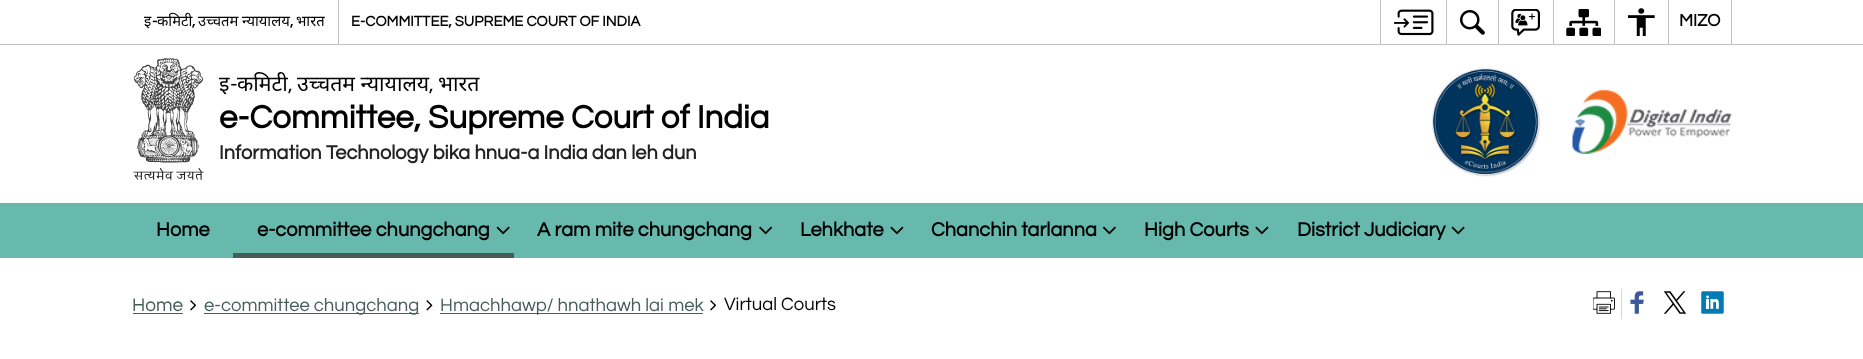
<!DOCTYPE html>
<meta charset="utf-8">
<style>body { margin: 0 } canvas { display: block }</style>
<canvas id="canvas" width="1863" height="359"></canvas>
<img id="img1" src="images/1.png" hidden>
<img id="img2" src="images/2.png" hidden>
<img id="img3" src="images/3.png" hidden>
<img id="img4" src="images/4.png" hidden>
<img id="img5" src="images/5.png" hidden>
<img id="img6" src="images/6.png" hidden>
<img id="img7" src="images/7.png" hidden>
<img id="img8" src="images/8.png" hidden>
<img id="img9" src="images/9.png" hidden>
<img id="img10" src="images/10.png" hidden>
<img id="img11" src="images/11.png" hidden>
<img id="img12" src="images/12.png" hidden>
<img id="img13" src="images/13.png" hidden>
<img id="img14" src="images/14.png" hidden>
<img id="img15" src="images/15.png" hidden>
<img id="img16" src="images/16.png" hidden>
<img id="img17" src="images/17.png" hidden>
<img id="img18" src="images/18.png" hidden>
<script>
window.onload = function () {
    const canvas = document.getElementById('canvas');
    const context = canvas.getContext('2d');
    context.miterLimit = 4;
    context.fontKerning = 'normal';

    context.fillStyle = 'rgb(255, 255, 255)';
    context.fillRect(0, 0, 1863, 359);
    context.fillStyle = 'rgb(194, 192, 193)';
    context.fillRect(0, 44, 1863, 1);
    context.fillRect(338, 0, 1, 44);
    context.fillRect(1380, 0, 1, 44);
    context.drawImage(document.getElementById('img1'), 1394, 9, 40, 27);
    context.fillRect(1446, 0, 1, 44);
    context.drawImage(document.getElementById('img2'), 1460, 10, 25, 25);
    context.fillRect(1498, 0, 1, 44);
    context.drawImage(document.getElementById('img3'), 1511, 9, 29, 27);
    context.fillRect(1553, 0, 1, 44);
    context.drawImage(document.getElementById('img4'), 1566, 9, 35, 27);
    context.fillRect(1614, 0, 1, 44);
    context.drawImage(document.getElementById('img5'), 1628, 8, 27, 28);
    context.fillRect(1731, 0, 1, 44);
    context.fillRect(1668, 0, 1, 44);
    context.drawImage(document.getElementById('img6'), 133, 58, 71, 122);
    context.drawImage(document.getElementById('img7'), 1432, 68, 109, 109);
    context.drawImage(document.getElementById('img8'), 1572, 89, 160, 65);
    context.fillStyle = 'rgb(102, 185, 172)';
    context.fillRect(0, 203, 1863, 55);
    context.fillStyle = 'rgb(71, 92, 89)';
    context.fillRect(233, 253, 281, 5);
    context.drawImage(document.getElementById('img9'), 496, 226, 14, 9);
    context.drawImage(document.getElementById('img10'), 759, 226, 14, 9);
    context.drawImage(document.getElementById('img11'), 890, 226, 14, 9);
    context.drawImage(document.getElementById('img12'), 1102, 226, 14, 9);
    context.drawImage(document.getElementById('img11'), 1255, 226, 14, 9);
    context.drawImage(document.getElementById('img9'), 1451, 226, 14, 9);
    context.fillRect(133, 313, 50, 1);
    context.drawImage(document.getElementById('img13'), 190, 300, 7, 11);
    context.fillRect(204, 313, 215, 1);
    context.drawImage(document.getElementById('img14'), 426, 300, 7, 11);
    context.fillRect(440, 313, 263, 1);
    context.drawImage(document.getElementById('img13'), 710, 300, 7, 11);
    context.fillStyle = 'rgb(216, 216, 216)';
    context.fillRect(1621, 289, 1, 30);
    context.drawImage(document.getElementById('img15'), 1593, 291, 22, 23);
    context.drawImage(document.getElementById('img16'), 1630, 291, 14, 23);
    context.drawImage(document.getElementById('img17'), 1664, 291, 22, 23);
    context.drawImage(document.getElementById('img18'), 1701, 291, 23, 23);
    context.font = '14.75px Noto Sans';
    context.fillStyle = 'rgb(0, 0, 0)';
    context.fillText('इ', 144, 26);
    context.font = 'bold 14.75px Questrial';
    context.fillText('-', 152, 26);
    context.font = '14.75px Noto Sans';
    context.fillText('कमिटी', 157, 26);
    context.fillText('उच्चतम न्यायालय', 198, 26);
    context.fillText('भारत', 296, 26);
    context.font = 'bold 14.75px Questrial';
    context.fillText(',', 192, 26);
    context.fillText(',', 290, 26);
    context.fillText('E-COMMITTEE, SUPREME COURT OF INDIA', 351, 26);
    context.font = 'bold 17.5px Questrial';
    context.fillText('MIZO', 1679, 26);
    context.font = '21.25px Noto Sans';
    context.fillText('इ', 219, 91);
    context.font = '21.25px Questrial';
    context.fillText('-', 230, 91);
    context.font = '21.25px Noto Sans';
    context.fillText('कमिटी', 237, 91);
    context.fillText('उच्चतम न्यायालय', 297, 91);
    context.fillText('भारत', 438, 91);
    context.font = '21.25px Questrial';
    context.fillText(',', 288, 91);
    context.fillText(',', 429, 91);
    context.font = 'bold 33.2px Questrial';
    context.fillText('e-Committee, Supreme Court of India', 219, 128);
    context.font = 'bold 20px Questrial';
    context.fillStyle = 'rgb(34, 34, 34)';
    context.fillText('Information Technology bika hnua-a India dan leh dun', 219, 159);
    context.fillStyle = 'rgb(0, 0, 0)';
    context.fillText('Home', 156, 236);
    context.fillText('e-committee chungchang', 257, 236);
    context.fillText('A ram mite chungchang', 537, 236);
    context.fillText('Lehkhate', 800, 236);
    context.fillText('Chanchin tarlanna', 931, 236);
    context.fillText('High Courts', 1144, 236);
    context.fillText('District Judiciary', 1297, 236);
    context.font = '19px Questrial';
    context.fillStyle = 'rgb(71, 92, 89)';
    context.fillText('Home', 132, 311);
    context.font = '18.5px Questrial';
    context.fillText('e-committee chungchang', 204, 311);
    context.fillText('Hmachhawp/ hnathawh lai mek', 440, 311);
    context.fillStyle = 'rgb(0, 0, 0)';
    context.fillText('Virtual Courts', 724, 310);
};
</script>
